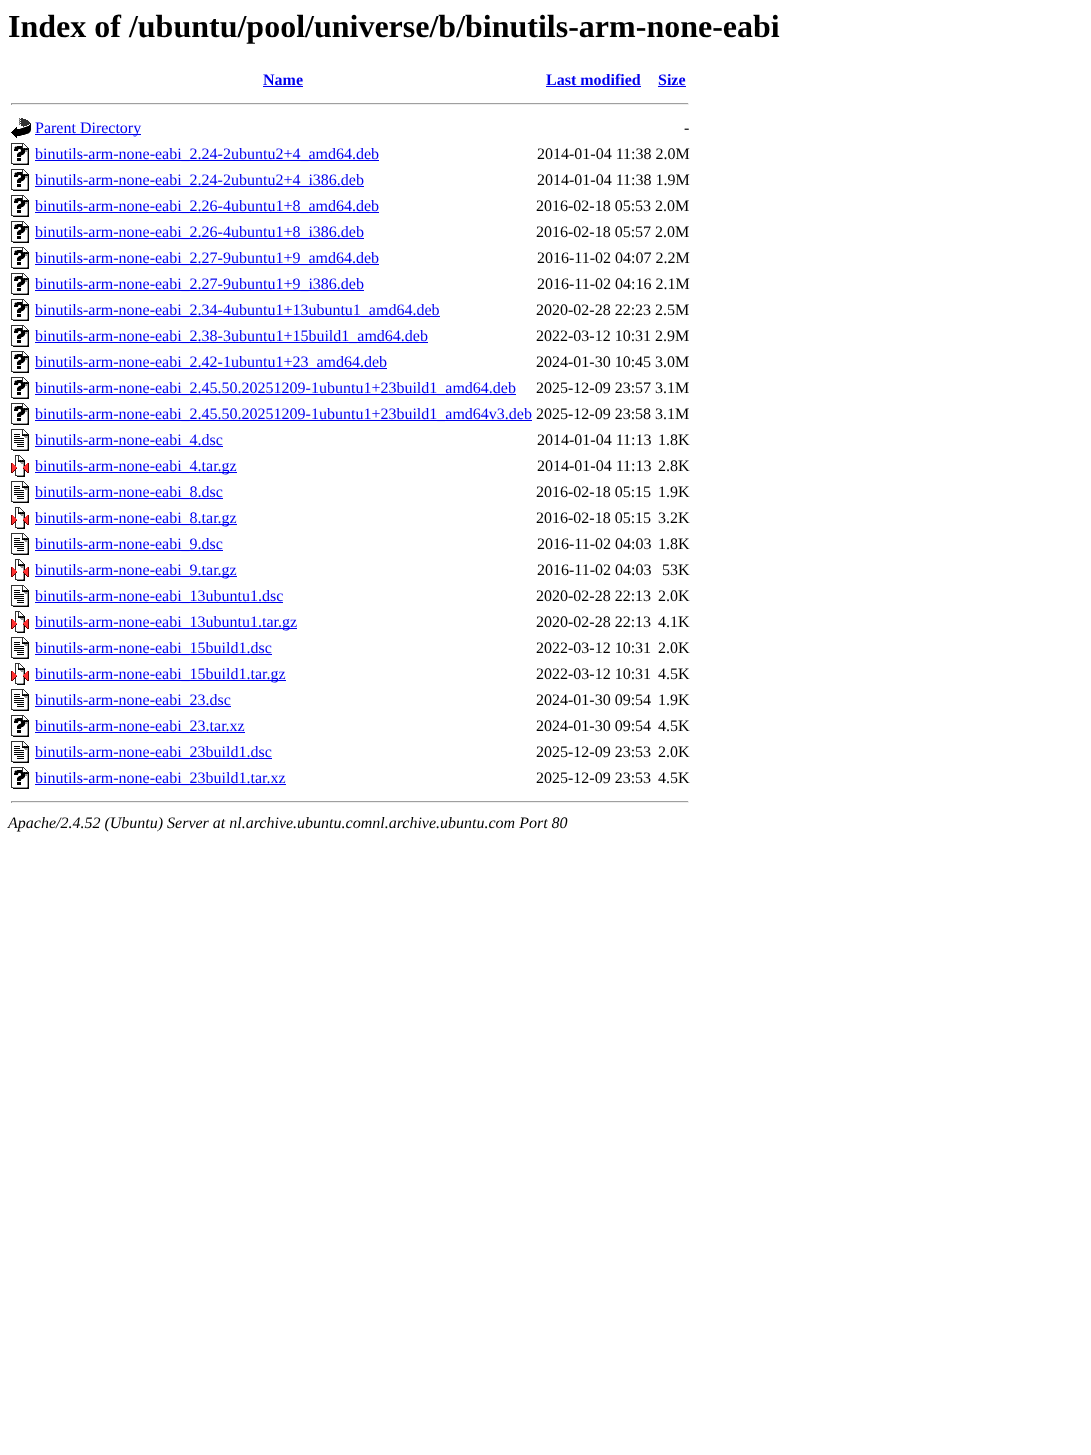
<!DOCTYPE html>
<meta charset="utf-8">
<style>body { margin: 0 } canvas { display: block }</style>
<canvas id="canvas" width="1091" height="1455"></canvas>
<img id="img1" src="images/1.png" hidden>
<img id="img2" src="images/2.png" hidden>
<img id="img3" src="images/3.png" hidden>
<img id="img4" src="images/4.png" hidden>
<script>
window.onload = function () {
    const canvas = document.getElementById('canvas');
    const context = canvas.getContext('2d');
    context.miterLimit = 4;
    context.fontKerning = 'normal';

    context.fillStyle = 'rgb(255, 255, 255)';
    context.fillRect(0, 0, 1091, 1455);
    context.fillStyle = 'rgb(0, 0, 238)';
    context.fillRect(263, 86, 40, 1);
    context.fillRect(546, 86, 95, 1);
    context.fillRect(658, 86, 28, 1);
    context.fillStyle = 'rgb(159, 159, 159)';
    context.fillRect(11, 103, 678, 1);
    context.fillStyle = 'rgb(238, 238, 238)';
    context.fillRect(688, 103, 1, 2);
    context.fillRect(11, 104, 678, 1);
    context.fillStyle = 'rgb(159, 159, 159)';
    context.fillRect(11, 103, 1, 2);
    context.drawImage(document.getElementById('img1'), 11, 118, 20, 20);
    context.fillStyle = 'rgb(0, 0, 238)';
    context.fillRect(35, 134, 106, 1);
    context.drawImage(document.getElementById('img2'), 11, 143, 18, 22);
    context.fillRect(35, 160, 344, 1);
    context.drawImage(document.getElementById('img2'), 11, 169, 18, 22);
    context.fillRect(35, 186, 329, 1);
    context.drawImage(document.getElementById('img2'), 11, 195, 18, 22);
    context.fillRect(35, 212, 344, 1);
    context.drawImage(document.getElementById('img2'), 11, 221, 18, 22);
    context.fillRect(35, 238, 329, 1);
    context.drawImage(document.getElementById('img2'), 11, 247, 18, 22);
    context.fillRect(35, 264, 344, 1);
    context.drawImage(document.getElementById('img2'), 11, 273, 18, 22);
    context.fillRect(35, 290, 329, 1);
    context.drawImage(document.getElementById('img2'), 11, 299, 18, 22);
    context.fillRect(35, 316, 405, 1);
    context.drawImage(document.getElementById('img2'), 11, 325, 18, 22);
    context.fillRect(35, 342, 393, 1);
    context.drawImage(document.getElementById('img2'), 11, 351, 18, 22);
    context.fillRect(35, 368, 352, 1);
    context.drawImage(document.getElementById('img2'), 11, 377, 18, 22);
    context.fillRect(35, 394, 481, 1);
    context.drawImage(document.getElementById('img2'), 11, 403, 18, 22);
    context.fillRect(35, 420, 497, 1);
    context.drawImage(document.getElementById('img3'), 11, 429, 18, 22);
    context.fillRect(35, 446, 188, 1);
    context.drawImage(document.getElementById('img4'), 11, 455, 18, 22);
    context.fillRect(35, 472, 202, 1);
    context.drawImage(document.getElementById('img3'), 11, 481, 18, 22);
    context.fillRect(35, 498, 188, 1);
    context.drawImage(document.getElementById('img4'), 11, 507, 18, 22);
    context.fillRect(35, 524, 202, 1);
    context.drawImage(document.getElementById('img3'), 11, 533, 18, 22);
    context.fillRect(35, 550, 188, 1);
    context.drawImage(document.getElementById('img4'), 11, 559, 18, 22);
    context.fillRect(35, 576, 202, 1);
    context.drawImage(document.getElementById('img3'), 11, 585, 18, 22);
    context.fillRect(35, 602, 248, 1);
    context.drawImage(document.getElementById('img4'), 11, 611, 18, 22);
    context.fillRect(35, 628, 262, 1);
    context.drawImage(document.getElementById('img3'), 11, 637, 18, 22);
    context.fillRect(35, 654, 237, 1);
    context.drawImage(document.getElementById('img4'), 11, 663, 18, 22);
    context.fillRect(35, 680, 251, 1);
    context.drawImage(document.getElementById('img3'), 11, 689, 18, 22);
    context.fillRect(35, 706, 196, 1);
    context.drawImage(document.getElementById('img2'), 11, 715, 18, 22);
    context.fillRect(35, 732, 210, 1);
    context.drawImage(document.getElementById('img3'), 11, 741, 18, 22);
    context.fillRect(35, 758, 237, 1);
    context.drawImage(document.getElementById('img2'), 11, 767, 18, 22);
    context.fillRect(35, 784, 251, 1);
    context.fillStyle = 'rgb(159, 159, 159)';
    context.fillRect(11, 801, 678, 1);
    context.fillStyle = 'rgb(238, 238, 238)';
    context.fillRect(688, 801, 1, 2);
    context.fillRect(11, 802, 678, 1);
    context.fillStyle = 'rgb(159, 159, 159)';
    context.fillRect(11, 801, 1, 2);
    context.font = 'bold 32px Liberation Serif';
    context.fillStyle = 'rgb(0, 0, 0)';
    context.fillText('Index of /ubuntu/pool/universe/b/binutils-arm-none-eabi', 8, 37);
    context.font = 'bold 16px Liberation Serif';
    context.fillStyle = 'rgb(0, 0, 238)';
    context.fillText('Name', 263, 85);
    context.fillText('Last modified', 546, 85);
    context.fillText('Size', 658, 85);
    context.font = '16px Liberation Serif';
    context.fillText('Parent Directory', 35, 133);
    context.fillStyle = 'rgb(0, 0, 0)';
    context.fillText('-', 684, 133);
    context.fillStyle = 'rgb(0, 0, 238)';
    context.fillText('binutils-arm-none-eabi_2.24-2ubuntu2+4_amd64.deb', 35, 159);
    context.fillStyle = 'rgb(0, 0, 0)';
    context.fillText('2014-01-04 11:38 2.0M', 537, 159);
    context.fillStyle = 'rgb(0, 0, 238)';
    context.fillText('binutils-arm-none-eabi_2.24-2ubuntu2+4_i386.deb', 35, 185);
    context.fillStyle = 'rgb(0, 0, 0)';
    context.fillText('2014-01-04 11:38 1.9M', 537, 185);
    context.fillStyle = 'rgb(0, 0, 238)';
    context.fillText('binutils-arm-none-eabi_2.26-4ubuntu1+8_amd64.deb', 35, 211);
    context.fillStyle = 'rgb(0, 0, 0)';
    context.fillText('2016-02-18 05:53 2.0M', 536, 211);
    context.fillStyle = 'rgb(0, 0, 238)';
    context.fillText('binutils-arm-none-eabi_2.26-4ubuntu1+8_i386.deb', 35, 237);
    context.fillStyle = 'rgb(0, 0, 0)';
    context.fillText('2016-02-18 05:57 2.0M', 536, 237);
    context.fillStyle = 'rgb(0, 0, 238)';
    context.fillText('binutils-arm-none-eabi_2.27-9ubuntu1+9_amd64.deb', 35, 263);
    context.fillStyle = 'rgb(0, 0, 0)';
    context.fillText('2016-11-02 04:07 2.2M', 537, 263);
    context.fillStyle = 'rgb(0, 0, 238)';
    context.fillText('binutils-arm-none-eabi_2.27-9ubuntu1+9_i386.deb', 35, 289);
    context.fillStyle = 'rgb(0, 0, 0)';
    context.fillText('2016-11-02 04:16 2.1M', 537, 289);
    context.fillStyle = 'rgb(0, 0, 238)';
    context.fillText('binutils-arm-none-eabi_2.34-4ubuntu1+13ubuntu1_amd64.deb', 35, 315);
    context.fillStyle = 'rgb(0, 0, 0)';
    context.fillText('2020-02-28 22:23 2.5M', 536, 315);
    context.fillStyle = 'rgb(0, 0, 238)';
    context.fillText('binutils-arm-none-eabi_2.38-3ubuntu1+15build1_amd64.deb', 35, 341);
    context.fillStyle = 'rgb(0, 0, 0)';
    context.fillText('2022-03-12 10:31 2.9M', 536, 341);
    context.fillStyle = 'rgb(0, 0, 238)';
    context.fillText('binutils-arm-none-eabi_2.42-1ubuntu1+23_amd64.deb', 35, 367);
    context.fillStyle = 'rgb(0, 0, 0)';
    context.fillText('2024-01-30 10:45 3.0M', 536, 367);
    context.fillStyle = 'rgb(0, 0, 238)';
    context.fillText('binutils-arm-none-eabi_2.45.50.20251209-1ubuntu1+23build1_amd64.deb', 35, 393);
    context.fillStyle = 'rgb(0, 0, 0)';
    context.fillText('2025-12-09 23:57 3.1M', 536, 393);
    context.fillStyle = 'rgb(0, 0, 238)';
    context.fillText('binutils-arm-none-eabi_2.45.50.20251209-1ubuntu1+23build1_amd64v3.deb', 35, 419);
    context.fillStyle = 'rgb(0, 0, 0)';
    context.fillText('2025-12-09 23:58 3.1M', 536, 419);
    context.fillStyle = 'rgb(0, 0, 238)';
    context.fillText('binutils-arm-none-eabi_4.dsc', 35, 445);
    context.fillStyle = 'rgb(0, 0, 0)';
    context.fillText('2014-01-04 11:13', 537, 445);
    context.fillText('1.8K', 658, 445);
    context.fillStyle = 'rgb(0, 0, 238)';
    context.fillText('binutils-arm-none-eabi_4.tar.gz', 35, 471);
    context.fillStyle = 'rgb(0, 0, 0)';
    context.fillText('2014-01-04 11:13', 537, 471);
    context.fillText('2.8K', 658, 471);
    context.fillStyle = 'rgb(0, 0, 238)';
    context.fillText('binutils-arm-none-eabi_8.dsc', 35, 497);
    context.fillStyle = 'rgb(0, 0, 0)';
    context.fillText('2016-02-18 05:15', 536, 497);
    context.fillText('1.9K', 658, 497);
    context.fillStyle = 'rgb(0, 0, 238)';
    context.fillText('binutils-arm-none-eabi_8.tar.gz', 35, 523);
    context.fillStyle = 'rgb(0, 0, 0)';
    context.fillText('2016-02-18 05:15', 536, 523);
    context.fillText('3.2K', 658, 523);
    context.fillStyle = 'rgb(0, 0, 238)';
    context.fillText('binutils-arm-none-eabi_9.dsc', 35, 549);
    context.fillStyle = 'rgb(0, 0, 0)';
    context.fillText('2016-11-02 04:03', 537, 549);
    context.fillText('1.8K', 658, 549);
    context.fillStyle = 'rgb(0, 0, 238)';
    context.fillText('binutils-arm-none-eabi_9.tar.gz', 35, 575);
    context.fillStyle = 'rgb(0, 0, 0)';
    context.fillText('2016-11-02 04:03', 537, 575);
    context.fillText('53K', 662, 575);
    context.fillStyle = 'rgb(0, 0, 238)';
    context.fillText('binutils-arm-none-eabi_13ubuntu1.dsc', 35, 601);
    context.fillStyle = 'rgb(0, 0, 0)';
    context.fillText('2020-02-28 22:13', 536, 601);
    context.fillText('2.0K', 658, 601);
    context.fillStyle = 'rgb(0, 0, 238)';
    context.fillText('binutils-arm-none-eabi_13ubuntu1.tar.gz', 35, 627);
    context.fillStyle = 'rgb(0, 0, 0)';
    context.fillText('2020-02-28 22:13', 536, 627);
    context.fillText('4.1K', 658, 627);
    context.fillStyle = 'rgb(0, 0, 238)';
    context.fillText('binutils-arm-none-eabi_15build1.dsc', 35, 653);
    context.fillStyle = 'rgb(0, 0, 0)';
    context.fillText('2022-03-12 10:31', 536, 653);
    context.fillText('2.0K', 658, 653);
    context.fillStyle = 'rgb(0, 0, 238)';
    context.fillText('binutils-arm-none-eabi_15build1.tar.gz', 35, 679);
    context.fillStyle = 'rgb(0, 0, 0)';
    context.fillText('2022-03-12 10:31', 536, 679);
    context.fillText('4.5K', 658, 679);
    context.fillStyle = 'rgb(0, 0, 238)';
    context.fillText('binutils-arm-none-eabi_23.dsc', 35, 705);
    context.fillStyle = 'rgb(0, 0, 0)';
    context.fillText('2024-01-30 09:54', 536, 705);
    context.fillText('1.9K', 658, 705);
    context.fillStyle = 'rgb(0, 0, 238)';
    context.fillText('binutils-arm-none-eabi_23.tar.xz', 35, 731);
    context.fillStyle = 'rgb(0, 0, 0)';
    context.fillText('2024-01-30 09:54', 536, 731);
    context.fillText('4.5K', 658, 731);
    context.fillStyle = 'rgb(0, 0, 238)';
    context.fillText('binutils-arm-none-eabi_23build1.dsc', 35, 757);
    context.fillStyle = 'rgb(0, 0, 0)';
    context.fillText('2025-12-09 23:53', 536, 757);
    context.fillText('2.0K', 658, 757);
    context.fillStyle = 'rgb(0, 0, 238)';
    context.fillText('binutils-arm-none-eabi_23build1.tar.xz', 35, 783);
    context.fillStyle = 'rgb(0, 0, 0)';
    context.fillText('2025-12-09 23:53', 536, 783);
    context.fillText('4.5K', 658, 783);
    context.font = 'italic 16px Liberation Serif';
    context.fillText('Apache/2.4.52 (Ubuntu) Server at nl.archive.ubuntu.comnl.archive.ubuntu.com Port 80', 8, 828);
};
</script>
